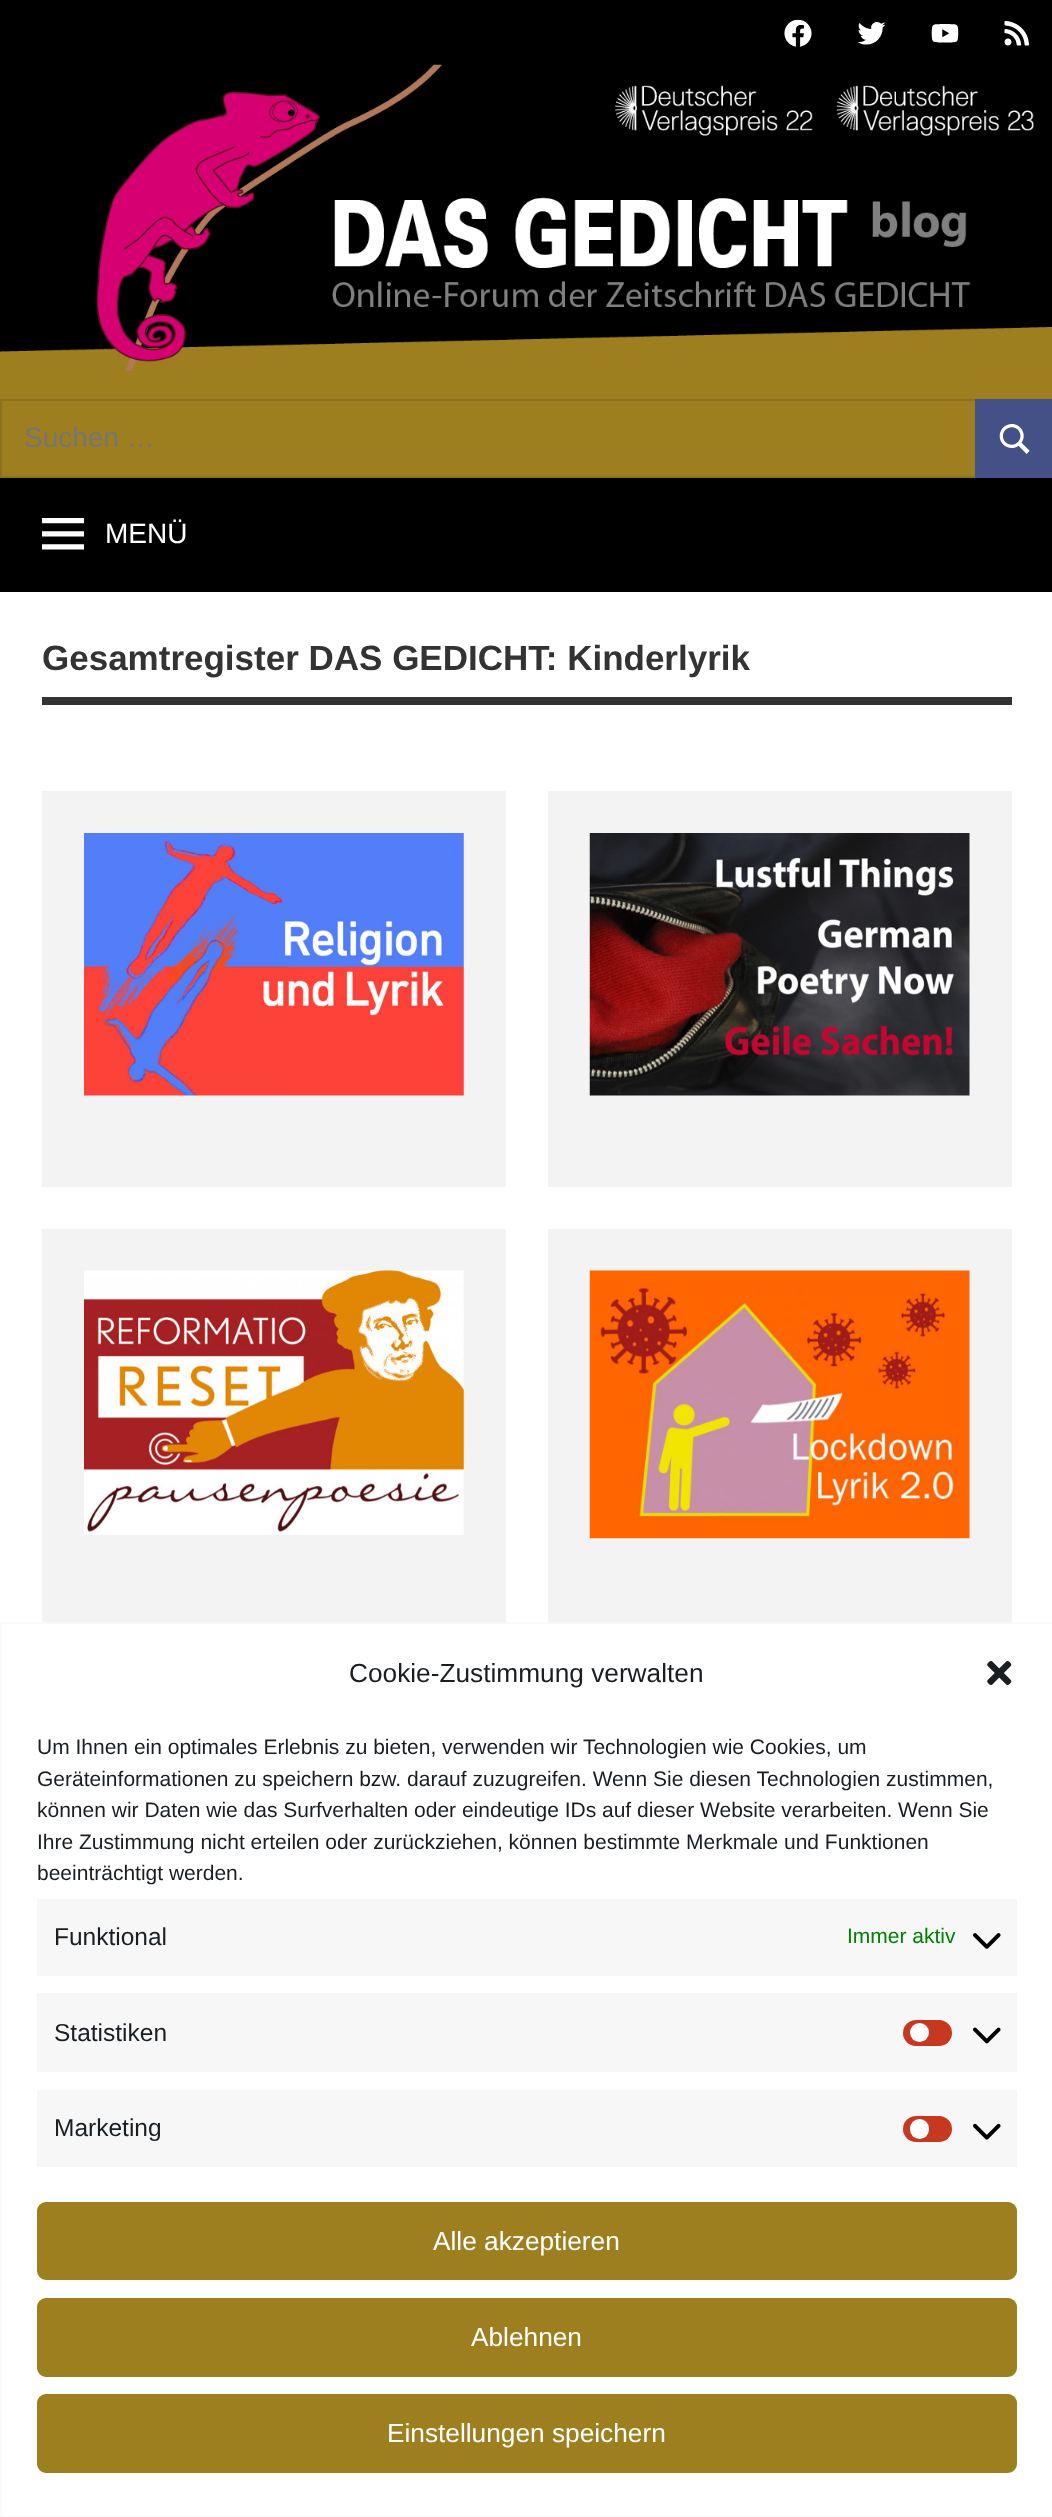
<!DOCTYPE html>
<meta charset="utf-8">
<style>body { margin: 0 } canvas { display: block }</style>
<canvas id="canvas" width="1052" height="2517"></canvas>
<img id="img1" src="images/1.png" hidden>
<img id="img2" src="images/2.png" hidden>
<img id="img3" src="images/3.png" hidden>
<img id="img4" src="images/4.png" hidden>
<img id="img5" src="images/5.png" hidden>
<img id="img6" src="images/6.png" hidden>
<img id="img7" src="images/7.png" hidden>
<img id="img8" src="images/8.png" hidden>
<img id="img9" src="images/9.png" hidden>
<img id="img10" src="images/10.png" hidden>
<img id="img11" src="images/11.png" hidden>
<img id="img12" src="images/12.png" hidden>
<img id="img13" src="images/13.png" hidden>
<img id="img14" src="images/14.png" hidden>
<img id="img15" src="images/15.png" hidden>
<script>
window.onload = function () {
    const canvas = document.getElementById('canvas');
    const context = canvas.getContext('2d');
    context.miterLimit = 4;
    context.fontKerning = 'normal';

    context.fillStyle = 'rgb(0, 0, 0)';
    context.fillRect(0, 0, 1052, 2517);
    context.drawImage(document.getElementById('img1'), 784, 19, 28, 28);
    context.drawImage(document.getElementById('img2'), 858, 22, 28, 23);
    context.drawImage(document.getElementById('img3'), 931, 24, 28, 19);
    context.drawImage(document.getElementById('img4'), 1004, 21, 25, 25);
    context.fillStyle = 'rgb(157, 127, 32)';
    context.fillRect(0, 371, 1052, 105);
    context.drawImage(document.getElementById('img5'), 0, 64, 1052, 307);
    context.strokeStyle = 'rgb(141, 114, 29)';
    context.lineWidth = 2;
    context.strokeRect(1, 400, 975, 77);
    context.fillStyle = 'rgb(68, 81, 134)';
    context.fillRect(975, 399, 77, 79);
    context.drawImage(document.getElementById('img6'), 999, 424, 31, 30);
    context.drawImage(document.getElementById('img7'), 42, 518, 42, 32);
    context.fillStyle = 'rgb(255, 255, 255)';
    context.fillRect(0, 592, 1052, 1030);
    context.fillStyle = 'rgb(51, 51, 51)';
    context.fillRect(42, 697, 970, 8);
    context.fillStyle = 'rgb(243, 243, 243)';
    context.fillRect(42, 791, 464, 396);
    context.drawImage(document.getElementById('img8'), 84, 833, 380, 263);
    context.fillRect(548, 791, 464, 396);
    context.drawImage(document.getElementById('img9'), 589, 833, 381, 263);
    context.fillRect(42, 1229, 464, 393);
    context.drawImage(document.getElementById('img10'), 84, 1270, 380, 265);
    context.fillRect(548, 1229, 464, 393);
    context.drawImage(document.getElementById('img11'), 589, 1270, 381, 269);
    context.fillStyle = 'rgb(255, 255, 255)';
    context.beginPath();
    context.rect(1, 1623, 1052, 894);
    context.fill();
    context.strokeStyle = 'rgb(249, 249, 249)';
    context.stroke();
    context.drawImage(document.getElementById('img12'), 987, 1661, 25, 24);
    context.fillStyle = 'rgb(247, 247, 247)';
    context.fillRect(37, 1899, 980, 77);
    context.drawImage(document.getElementById('img13'), 973, 1933, 28, 16);
    context.fillRect(37, 1993, 980, 79);
    context.fillStyle = 'rgb(198, 56, 31)';
    context.beginPath();
    context.roundRect(903, 2020, 49, 26, 13);
    context.fill();
    context.fillStyle = 'rgb(255, 255, 255)';
    context.beginPath();
    context.arc(919.5, 2032.5, 9.5, 0, 2 * Math.PI);
    context.fill();
    context.drawImage(document.getElementById('img14'), 973, 2027, 28, 17);
    context.fillStyle = 'rgb(247, 247, 247)';
    context.fillRect(37, 2090, 980, 77);
    context.fillStyle = 'rgb(198, 56, 31)';
    context.beginPath();
    context.roundRect(903, 2116, 49, 26, 13);
    context.fill();
    context.fillStyle = 'rgb(255, 255, 255)';
    context.beginPath();
    context.roundRect(910, 2119, 19, 20, 9.5);
    context.fill();
    context.drawImage(document.getElementById('img15'), 973, 2123, 28, 17);
    context.fillStyle = 'rgb(157, 127, 32)';
    context.beginPath();
    context.roundRect(38, 2203, 978, 76, 8);
    context.fill();
    context.strokeStyle = 'rgb(157, 127, 32)';
    context.stroke();
    context.beginPath();
    context.roundRect(38, 2299, 978, 77, 8);
    context.fill();
    context.stroke();
    context.beginPath();
    context.roundRect(38, 2395, 978, 77, 8);
    context.fill();
    context.stroke();
    context.font = '28px Liberation Sans';
    context.fillStyle = 'rgb(117, 117, 117)';
    context.fillText('Suchen …', 24, 447);
    context.fillStyle = 'rgb(255, 255, 255)';
    context.fillText('MENÜ', 105, 543);
    context.font = 'bold 35px Liberation Sans';
    context.fillStyle = 'rgb(51, 51, 51)';
    context.fillText('Gesamtregister DAS GEDICHT: Kinderlyrik', 42, 670);
    context.font = '26.25px Liberation Sans';
    context.fillStyle = 'rgb(25, 30, 35)';
    context.fillText('Cookie-Zustimmung verwalten', 349, 1682);
    context.font = '21px Liberation Sans';
    context.fillText('Um Ihnen ein optimales Erlebnis zu bieten, verwenden wir Technologien wie Cookies, um', 37, 1754);
    context.fillText('Geräteinformationen zu speichern bzw. darauf zuzugreifen. Wenn Sie diesen Technologien zustimmen,', 37, 1786);
    context.fillText('können wir Daten wie das Surfverhalten oder eindeutige IDs auf dieser Website verarbeiten. Wenn Sie', 37, 1817);
    context.fillText('Ihre Zustimmung nicht erteilen oder zurückziehen, können bestimmte Merkmale und Funktionen', 37, 1849);
    context.fillText('beeinträchtigt werden.', 37, 1880);
    context.font = '24.5px Liberation Sans';
    context.fillText('Funktional', 54, 1945);
    context.font = '21px Liberation Sans';
    context.fillStyle = 'rgb(0, 128, 0)';
    context.fillText('Immer aktiv', 847, 1943);
    context.font = '24.5px Liberation Sans';
    context.fillStyle = 'rgb(25, 30, 35)';
    context.fillText('Statistiken', 54, 2041);
    context.fillText('Marketing', 54, 2136);
    context.font = '26.25px Liberation Sans';
    context.fillStyle = 'rgb(255, 255, 255)';
    context.fillText('Alle akzeptieren', 433, 2250);
    context.fillText('Ablehnen', 471, 2346);
    context.fillText('Einstellungen speichern', 387, 2442);
};
</script>
